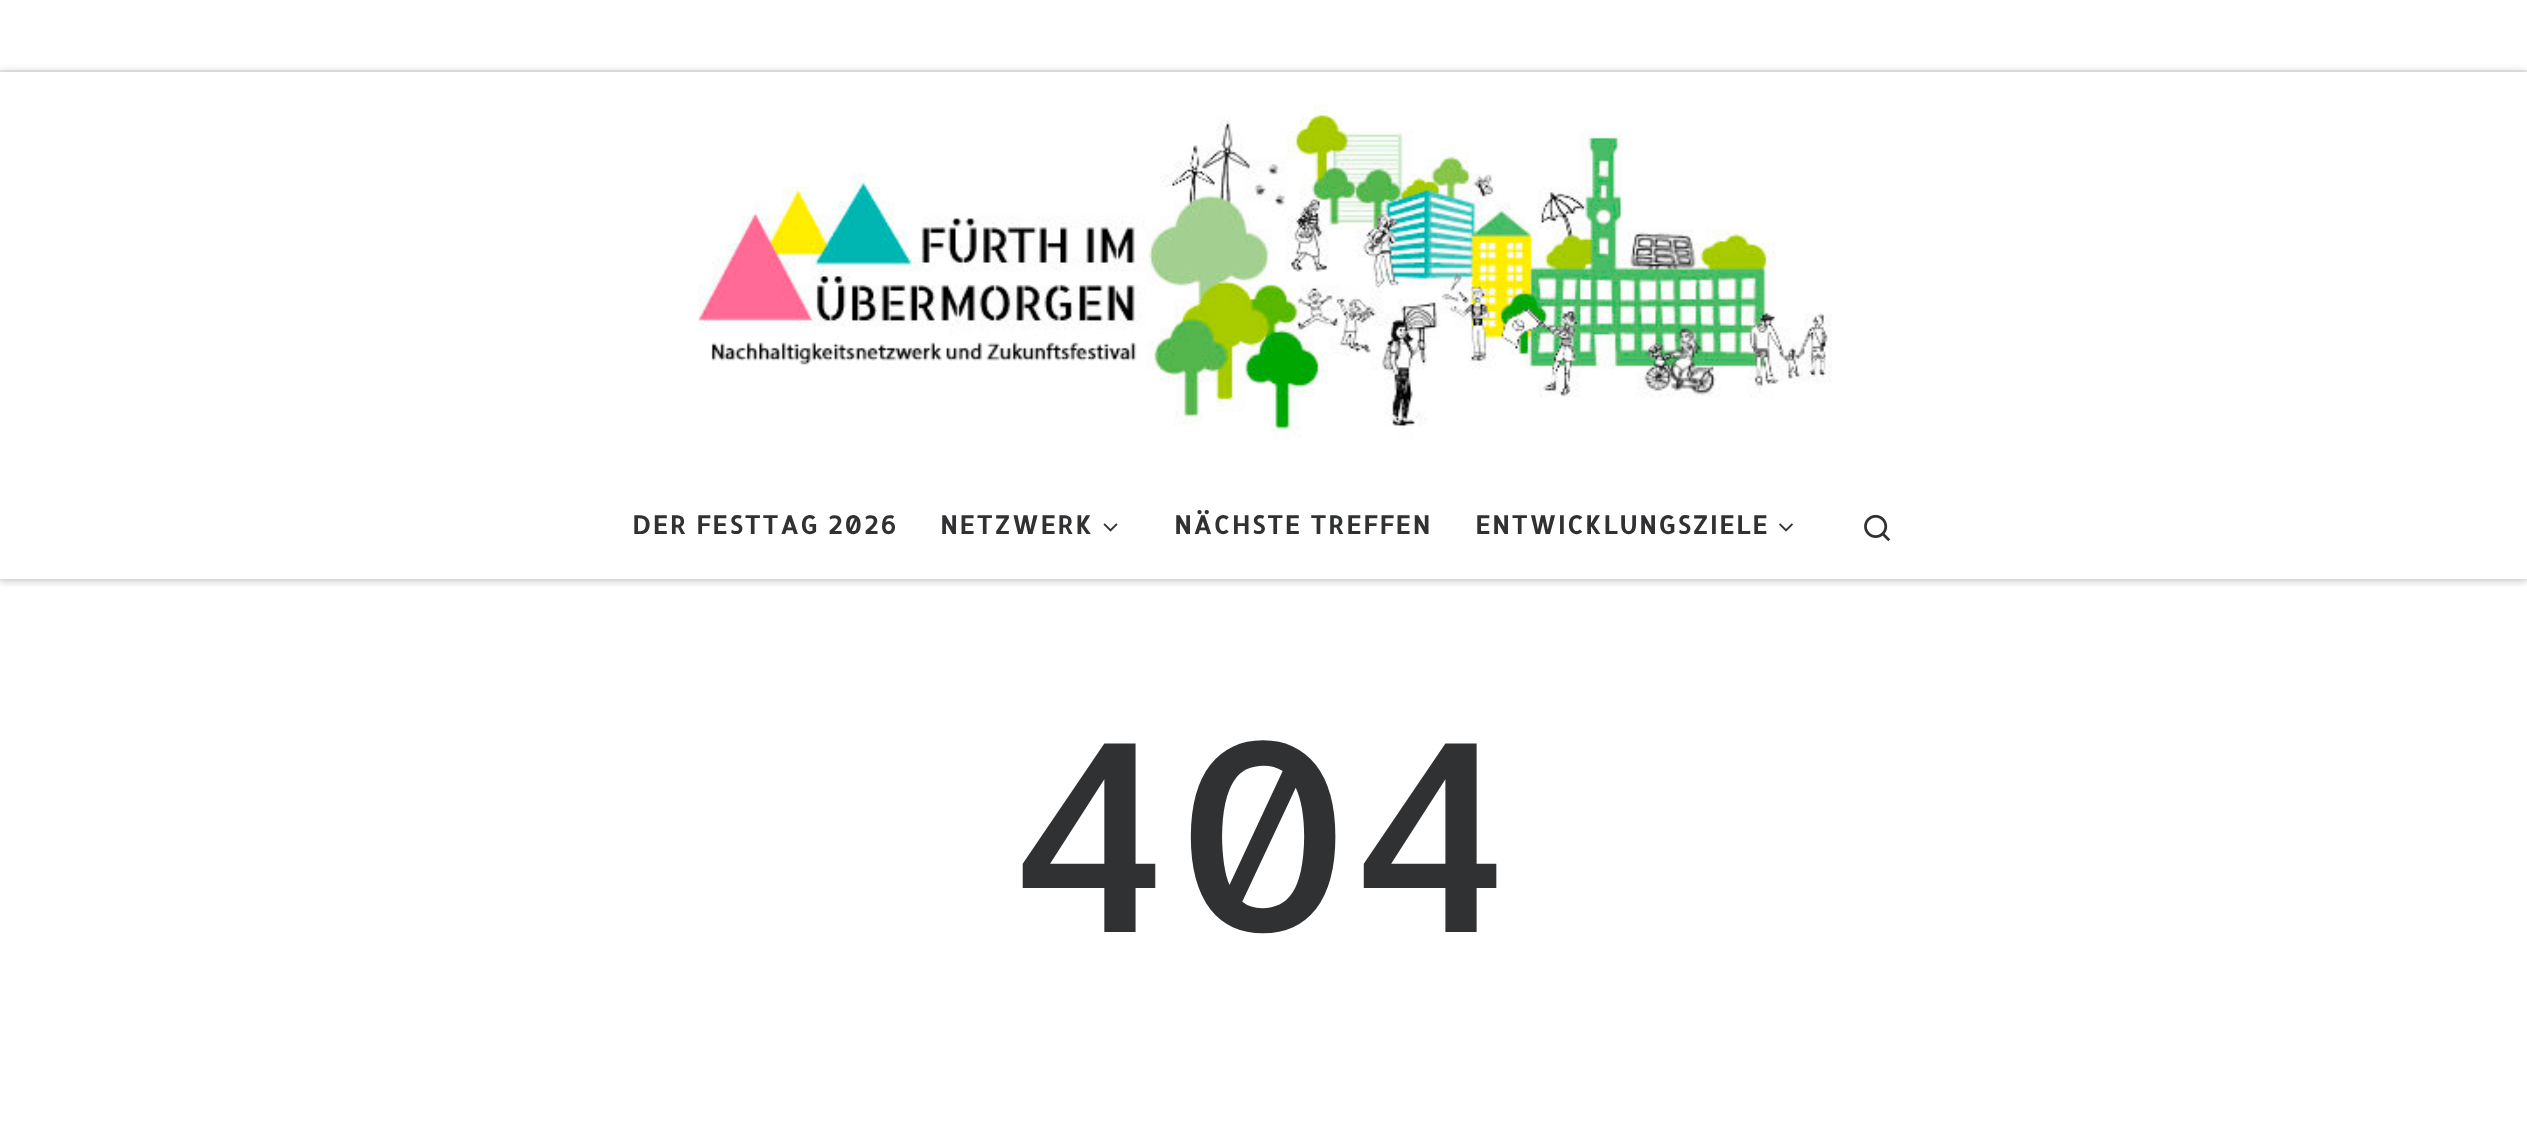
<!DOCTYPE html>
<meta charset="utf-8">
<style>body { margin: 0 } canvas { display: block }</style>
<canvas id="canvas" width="2527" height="1144"></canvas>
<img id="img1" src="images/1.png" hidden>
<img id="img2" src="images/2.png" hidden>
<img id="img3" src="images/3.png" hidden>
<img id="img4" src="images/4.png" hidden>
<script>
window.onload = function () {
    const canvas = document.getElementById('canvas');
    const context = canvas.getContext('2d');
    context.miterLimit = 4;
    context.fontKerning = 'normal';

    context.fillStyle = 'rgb(255, 255, 255)';
    context.fillRect(0, 0, 2527, 1144);
    context.save();
    context.beginPath();
    context.rect(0, 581, 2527, 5);
    context.clip();
    context.fillStyle = 'rgba(102, 102, 102, 0.08)';
    context.filter = 'blur(2px)';
    context.beginPath();
    context.rect(0, 4, 2527, 581);
    context.fill();
    context.filter = 'none';
    context.restore();
    context.fillStyle = 'rgb(236, 236, 236)';
    context.fillRect(0, 70, 2527, 2);
    context.fillStyle = 'rgb(239, 239, 239)';
    context.fillRect(0, 579, 2527, 2);
    context.save();
    context.beginPath();
    context.moveTo(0, 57);
    context.lineTo(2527, 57);
    context.lineTo(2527, 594);
    context.lineTo(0, 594);
    context.closePath();
    context.moveTo(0, 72);
    context.lineTo(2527, 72);
    context.lineTo(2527, 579);
    context.lineTo(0, 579);
    context.closePath();
    context.clip('evenodd');
    context.fillStyle = 'rgba(0, 0, 0, 0.2)';
    context.filter = 'blur(4.5px)';
    context.beginPath();
    context.rect(0, 72, 2527, 507);
    context.fill();
    context.filter = 'none';
    context.restore();
    context.drawImage(document.getElementById('img1'), 698, 104, 1134, 336);
    context.drawImage(document.getElementById('img2'), 1103, 523, 15, 9);
    context.drawImage(document.getElementById('img3'), 1779, 523, 14, 9);
    context.drawImage(document.getElementById('img4'), 1864, 514, 27, 28);
    context.letterSpacing = '1.75px';
    context.font = 'bold 25px Allerta';
    context.fillStyle = 'rgb(48, 49, 51)';
    context.fillText('DER FESTTAG 2026', 632, 534);
    context.fillText('NETZWERK', 940, 534);
    context.fillText('NÄCHSTE TREFFEN', 1174, 534);
    context.fillText('ENTWICKLUNGSZIELE', 1475, 534);
    context.letterSpacing = '0px';
    context.font = '262px Allerta';
    context.fillText('404', 1013, 932);
};
</script>
